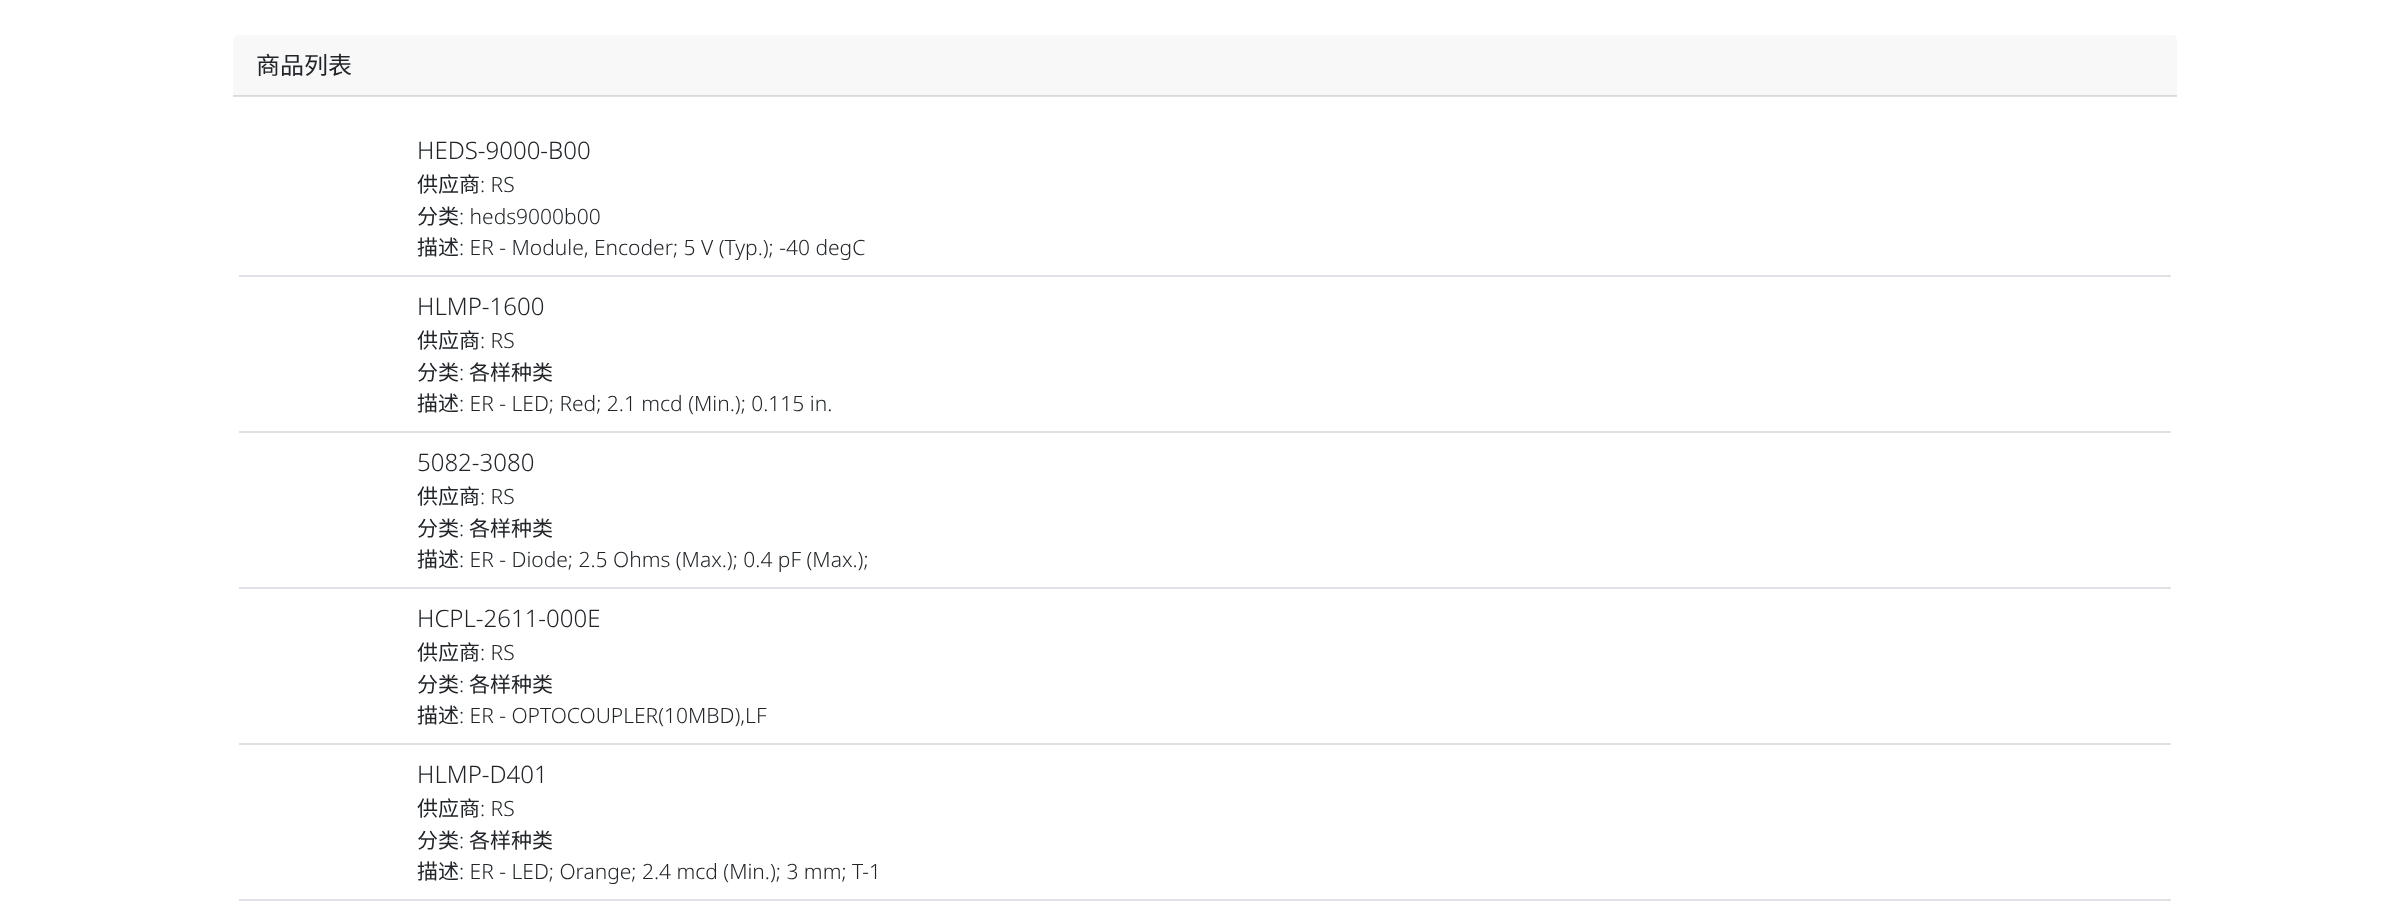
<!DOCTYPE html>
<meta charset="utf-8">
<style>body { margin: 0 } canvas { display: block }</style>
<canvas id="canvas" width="2407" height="924"></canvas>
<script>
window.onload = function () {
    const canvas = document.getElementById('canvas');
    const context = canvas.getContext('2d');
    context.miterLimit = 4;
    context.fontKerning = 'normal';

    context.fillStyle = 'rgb(255, 255, 255)';
    context.fillRect(0, 0, 2407, 924);
    context.fillStyle = 'rgb(224, 224, 224)';
    context.fillRect(233, 96, 1944, 1);
    context.fillStyle = 'rgb(248, 248, 248)';
    context.beginPath();
    context.roundRect(233, 35, 1944, 61, [5, 5, 0, 0]);
    context.fill();
    context.fillStyle = 'rgb(218, 218, 218)';
    context.fillRect(233, 95, 1944, 1);
    context.fillStyle = 'rgb(222, 226, 230)';
    context.fillRect(239, 275, 1932, 2);
    context.fillRect(239, 431, 1932, 2);
    context.fillRect(239, 587, 1932, 2);
    context.fillRect(239, 743, 1932, 2);
    context.fillRect(239, 899, 1932, 2);
    context.font = '24px Noto Sans CJK SC';
    context.fillStyle = 'rgb(33, 37, 41)';
    context.fillText('商品列表', 256, 74);
    context.font = '300 24px Noto Sans';
    context.fillText('HEDS-9000-B00', 417, 159);
    context.font = '21px Noto Sans CJK SC';
    context.fillText('供应商', 417, 192);
    context.font = '300 21px Noto Sans';
    context.fillText(': RS', 480, 192);
    context.font = '21px Noto Sans CJK SC';
    context.fillText('分类', 417, 224);
    context.font = '300 21px Noto Sans';
    context.fillText(': heds9000b00', 459, 224);
    context.font = '21px Noto Sans CJK SC';
    context.fillText('描述', 417, 255);
    context.font = '300 21px Noto Sans';
    context.fillText(': ER - Module, Encoder; 5 V (Typ.); -40 degC', 459, 255);
    context.font = '300 24px Noto Sans';
    context.fillText('HLMP-1600', 417, 315);
    context.font = '21px Noto Sans CJK SC';
    context.fillText('供应商', 417, 348);
    context.font = '300 21px Noto Sans';
    context.fillText(': RS', 480, 348);
    context.font = '21px Noto Sans CJK SC';
    context.fillText('分类', 417, 380);
    context.font = '300 21px Noto Sans';
    context.fillText(':', 459, 380);
    context.font = '21px Noto Sans CJK SC';
    context.fillText('各样种类', 469, 380);
    context.fillText('描述', 417, 411);
    context.font = '300 21px Noto Sans';
    context.fillText(': ER - LED; Red; 2.1 mcd (Min.); 0.115 in.', 459, 411);
    context.font = '300 24px Noto Sans';
    context.fillText('5082-3080', 417, 471);
    context.font = '21px Noto Sans CJK SC';
    context.fillText('供应商', 417, 504);
    context.font = '300 21px Noto Sans';
    context.fillText(': RS', 480, 504);
    context.font = '21px Noto Sans CJK SC';
    context.fillText('分类', 417, 536);
    context.font = '300 21px Noto Sans';
    context.fillText(':', 459, 536);
    context.font = '21px Noto Sans CJK SC';
    context.fillText('各样种类', 469, 536);
    context.fillText('描述', 417, 567);
    context.font = '300 21px Noto Sans';
    context.fillText(': ER - Diode; 2.5 Ohms (Max.); 0.4 pF (Max.);', 459, 567);
    context.font = '300 24px Noto Sans';
    context.fillText('HCPL-2611-000E', 417, 627);
    context.font = '21px Noto Sans CJK SC';
    context.fillText('供应商', 417, 660);
    context.font = '300 21px Noto Sans';
    context.fillText(': RS', 480, 660);
    context.font = '21px Noto Sans CJK SC';
    context.fillText('分类', 417, 692);
    context.font = '300 21px Noto Sans';
    context.fillText(':', 459, 692);
    context.font = '21px Noto Sans CJK SC';
    context.fillText('各样种类', 469, 692);
    context.fillText('描述', 417, 723);
    context.font = '300 21px Noto Sans';
    context.fillText(': ER - OPTOCOUPLER(10MBD),LF', 459, 723);
    context.font = '300 24px Noto Sans';
    context.fillText('HLMP-D401', 417, 783);
    context.font = '21px Noto Sans CJK SC';
    context.fillText('供应商', 417, 816);
    context.font = '300 21px Noto Sans';
    context.fillText(': RS', 480, 816);
    context.font = '21px Noto Sans CJK SC';
    context.fillText('分类', 417, 848);
    context.font = '300 21px Noto Sans';
    context.fillText(':', 459, 848);
    context.font = '21px Noto Sans CJK SC';
    context.fillText('各样种类', 469, 848);
    context.fillText('描述', 417, 879);
    context.font = '300 21px Noto Sans';
    context.fillText(': ER - LED; Orange; 2.4 mcd (Min.); 3 mm; T-1', 459, 879);
};
</script>
